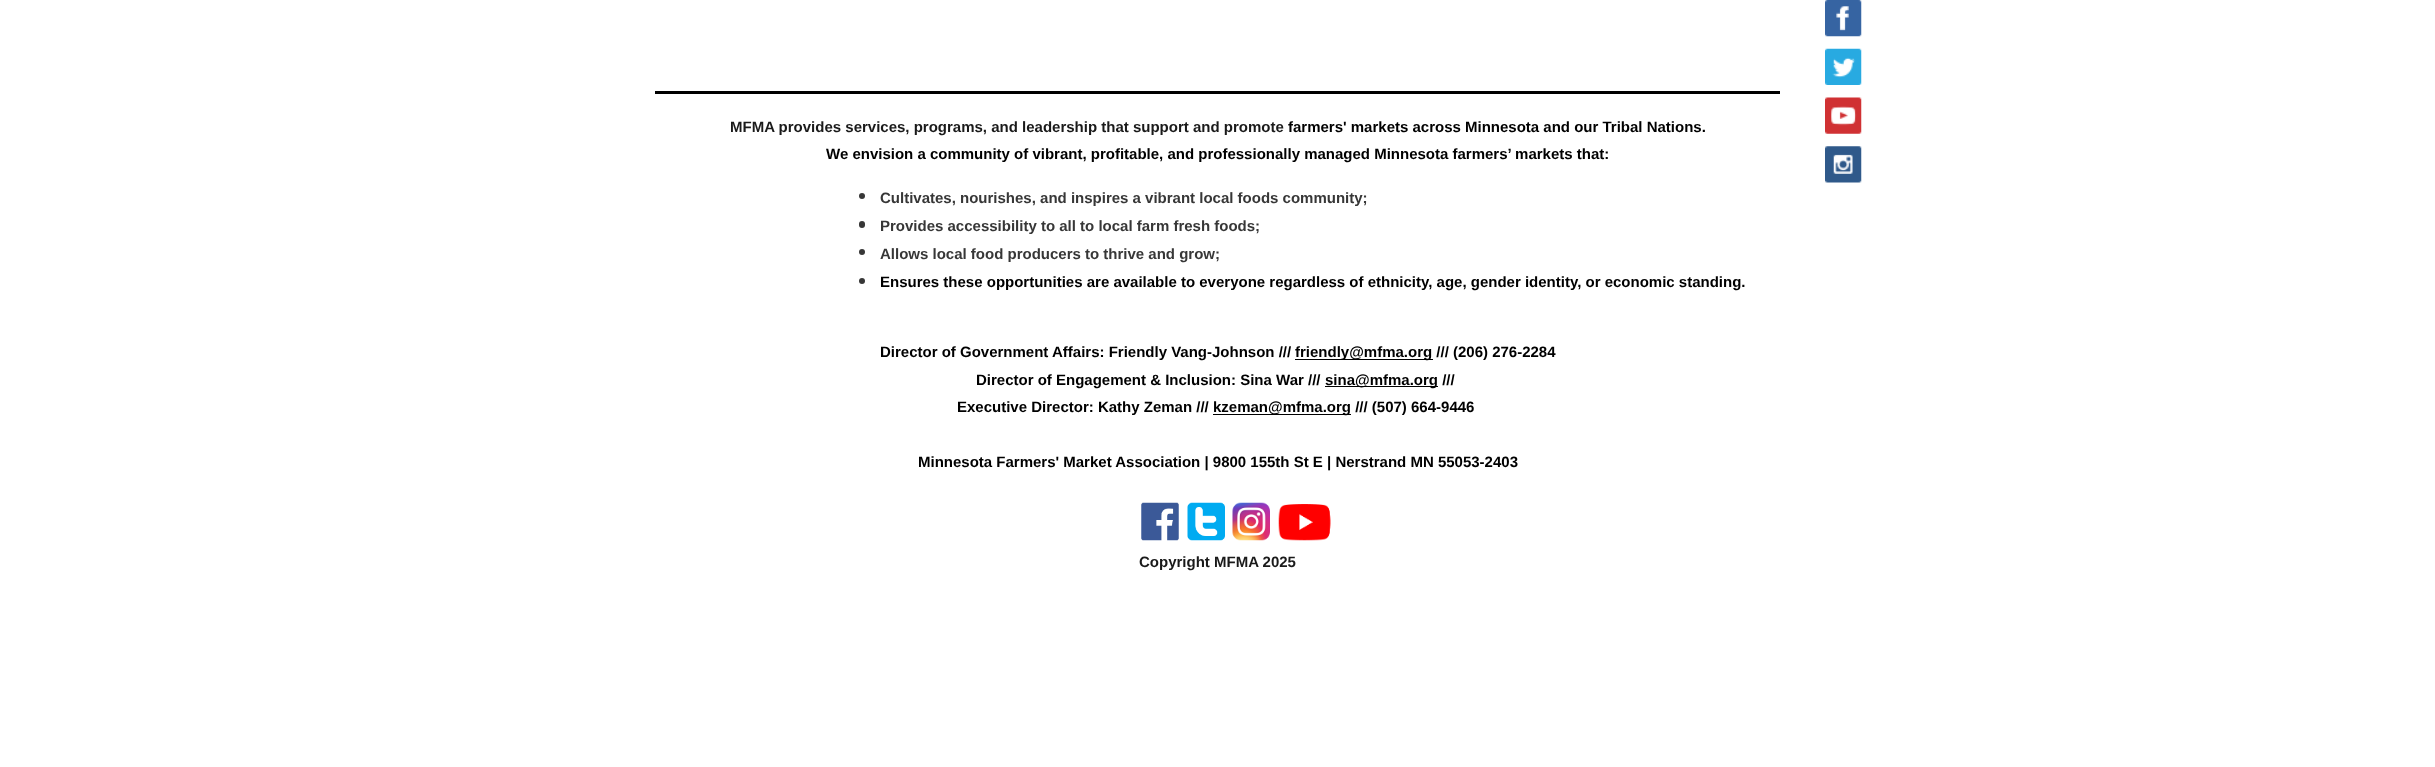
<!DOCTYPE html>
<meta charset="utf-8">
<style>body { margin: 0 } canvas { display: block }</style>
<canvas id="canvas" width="2435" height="767"></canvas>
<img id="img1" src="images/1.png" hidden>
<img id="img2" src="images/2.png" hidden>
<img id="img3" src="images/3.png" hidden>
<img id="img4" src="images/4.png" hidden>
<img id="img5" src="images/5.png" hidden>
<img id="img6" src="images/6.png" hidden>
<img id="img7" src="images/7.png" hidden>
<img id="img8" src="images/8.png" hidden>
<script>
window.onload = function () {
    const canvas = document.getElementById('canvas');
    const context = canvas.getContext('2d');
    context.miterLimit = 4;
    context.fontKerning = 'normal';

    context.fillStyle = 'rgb(255, 255, 255)';
    context.fillRect(0, 0, 2435, 767);
    context.drawImage(document.getElementById('img1'), 1825, 0, 37, 37);
    context.drawImage(document.getElementById('img2'), 1825, 48, 37, 37);
    context.drawImage(document.getElementById('img3'), 1825, 97, 37, 37);
    context.drawImage(document.getElementById('img4'), 1825, 146, 37, 37);
    context.fillStyle = 'rgb(0, 0, 0)';
    context.fillRect(655, 91, 1125, 3);
    context.fillStyle = 'rgb(55, 55, 55)';
    context.beginPath();
    context.arc(862, 196, 3, 0, 2 * Math.PI);
    context.fill();
    context.beginPath();
    context.roundRect(859, 221, 6, 7, 3);
    context.fill();
    context.beginPath();
    context.arc(862, 252, 3, 0, 2 * Math.PI);
    context.fill();
    context.beginPath();
    context.arc(862, 281, 3, 0, 2 * Math.PI);
    context.fill();
    context.fillStyle = 'rgb(0, 0, 0)';
    context.fillRect(1295, 359, 138, 1);
    context.fillRect(1325, 386, 113, 1);
    context.fillRect(1213, 414, 138, 1);
    context.drawImage(document.getElementById('img5'), 1141, 502, 38, 39);
    context.drawImage(document.getElementById('img6'), 1187, 502, 38, 39);
    context.drawImage(document.getElementById('img7'), 1232, 502, 38, 39);
    context.drawImage(document.getElementById('img8'), 1278, 504, 53, 37);
    context.font = 'bold 15px Liberation Sans';
    context.fillStyle = 'rgb(26, 26, 26)';
    context.fillText('MFMA provides services, programs, and leadership that support and promote', 730, 132);
    context.fillStyle = 'rgb(0, 0, 0)';
    context.fillText('farmers\' markets across Minnesota and our Tribal Nations.', 1288, 132);
    context.fillText('We envision a community of vibrant, profitable, and professionally managed Minnesota farmers’ markets that:', 826, 159);
    context.fillStyle = 'rgb(55, 55, 55)';
    context.fillText('Cultivates, nourishes, and inspires a vibrant local foods community;', 880, 203);
    context.fillText('Provides accessibility to all to local farm fresh foods;', 880, 231);
    context.fillText('Allows local food producers to thrive and grow;', 880, 259);
    context.fillStyle = 'rgb(0, 0, 0)';
    context.fillText('Ensures these opportunities are available to everyone regardless of ethnicity, age, gender identity, or economic standing.', 880, 287);
    context.fillText('Director of Government Affairs: Friendly Vang-Johnson ///', 880, 357);
    context.fillText('friendly@mfma.org /// (206) 276-2284', 1295, 357);
    context.fillText('Director of Engagement & Inclusion: Sina War ///', 976, 385);
    context.fillText('sina@mfma.org ///', 1325, 385);
    context.fillText('Executive Director: Kathy Zeman ///', 957, 412);
    context.fillText('kzeman@mfma.org /// (507) 664-9446', 1213, 412);
    context.fillText('Minnesota Farmers\' Market Association | 9800 155th St E | Nerstrand MN 55053-2403', 918, 467);
    context.fillStyle = 'rgb(26, 26, 26)';
    context.fillText('Copyright MFMA 2025', 1139, 567);
};
</script>
